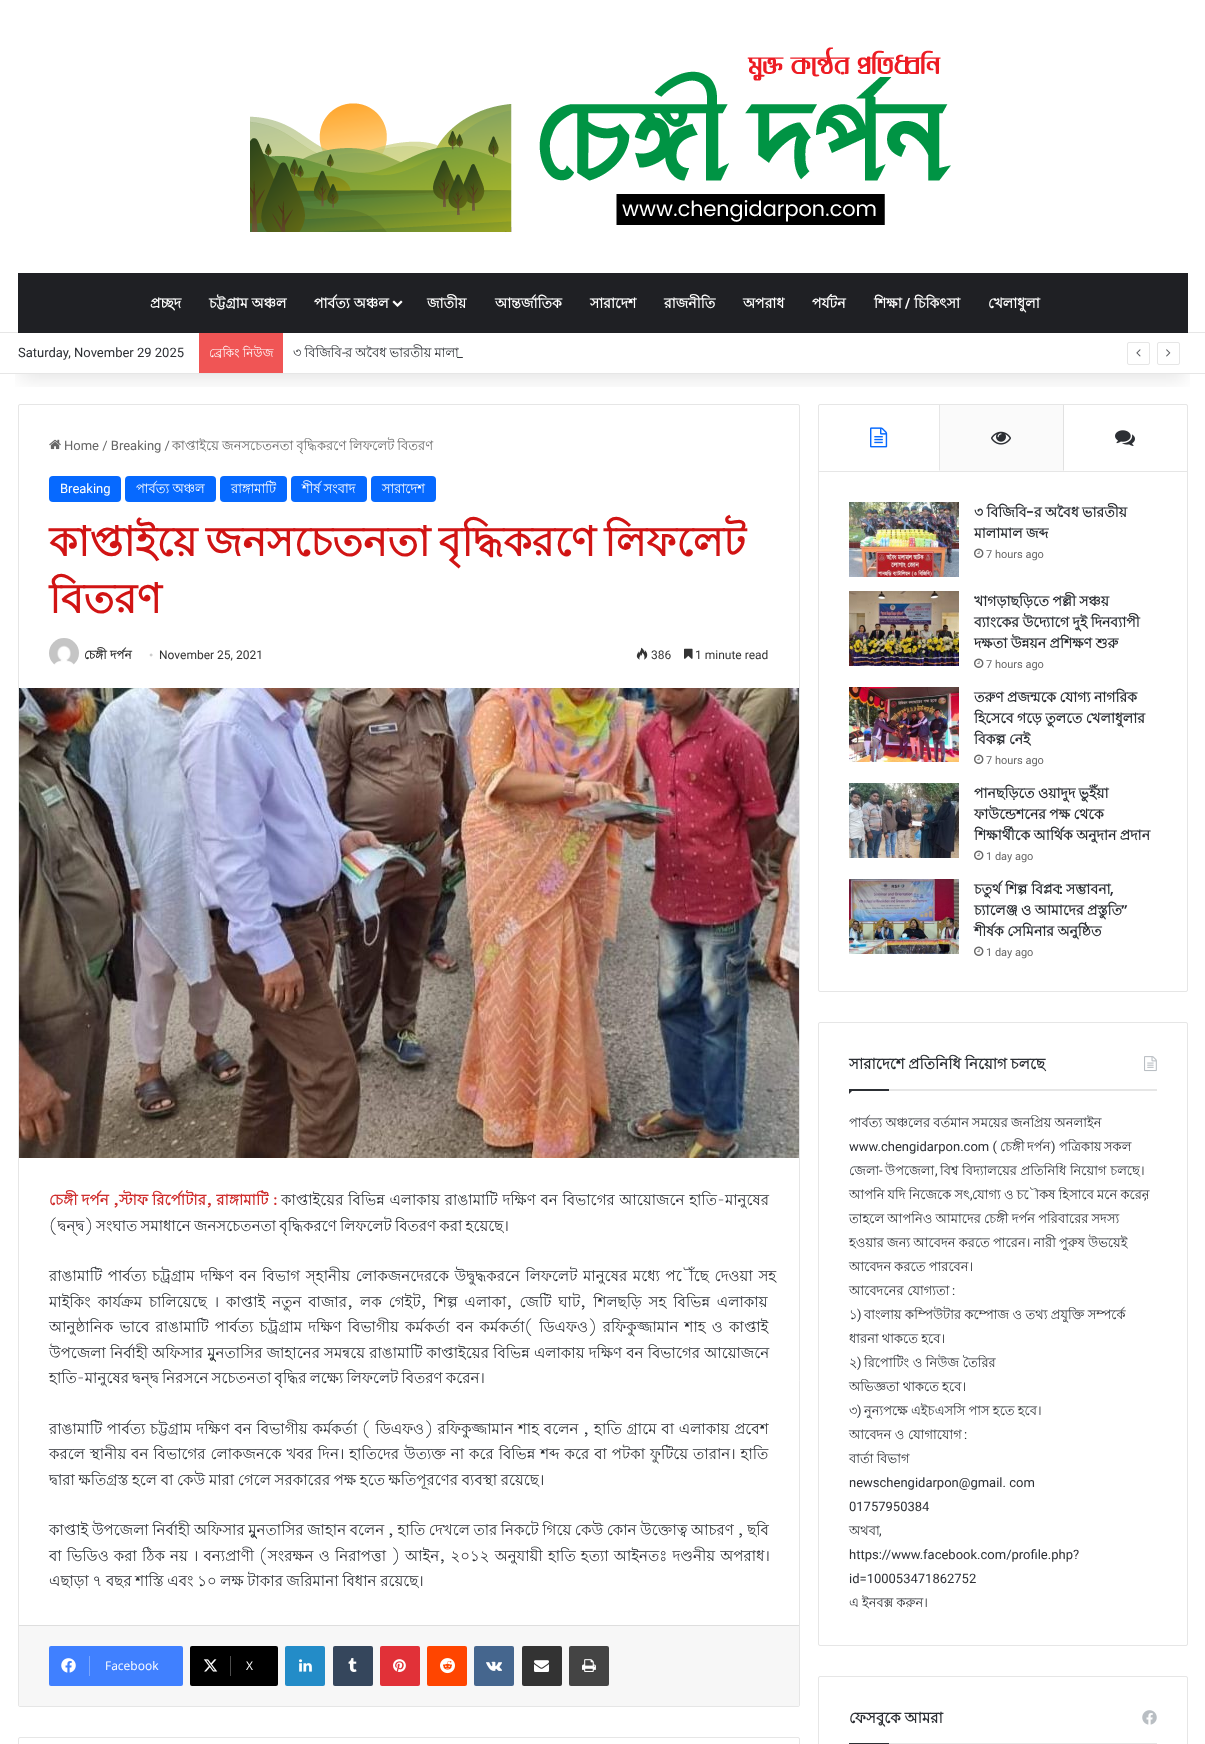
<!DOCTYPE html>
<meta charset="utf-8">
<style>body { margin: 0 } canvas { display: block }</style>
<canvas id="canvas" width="1205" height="1744"></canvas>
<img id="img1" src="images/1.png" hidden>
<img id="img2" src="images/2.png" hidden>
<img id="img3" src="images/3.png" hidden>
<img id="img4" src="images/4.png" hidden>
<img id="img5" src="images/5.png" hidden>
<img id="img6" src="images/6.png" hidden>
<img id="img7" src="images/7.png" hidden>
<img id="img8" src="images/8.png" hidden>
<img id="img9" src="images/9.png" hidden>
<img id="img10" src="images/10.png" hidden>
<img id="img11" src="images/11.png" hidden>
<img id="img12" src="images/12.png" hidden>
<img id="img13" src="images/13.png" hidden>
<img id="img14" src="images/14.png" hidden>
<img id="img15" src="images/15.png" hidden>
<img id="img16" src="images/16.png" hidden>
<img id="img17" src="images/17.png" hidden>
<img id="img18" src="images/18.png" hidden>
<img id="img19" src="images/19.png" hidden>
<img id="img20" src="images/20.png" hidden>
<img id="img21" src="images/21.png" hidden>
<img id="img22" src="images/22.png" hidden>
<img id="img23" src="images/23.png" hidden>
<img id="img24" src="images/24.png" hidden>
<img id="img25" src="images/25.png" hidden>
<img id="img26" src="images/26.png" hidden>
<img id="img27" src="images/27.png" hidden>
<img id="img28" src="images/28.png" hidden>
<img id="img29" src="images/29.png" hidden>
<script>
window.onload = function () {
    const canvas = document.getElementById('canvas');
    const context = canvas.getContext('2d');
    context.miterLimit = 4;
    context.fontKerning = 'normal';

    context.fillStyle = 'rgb(255, 255, 255)';
    context.fillRect(0, 0, 1205, 1744);
    context.beginPath();
    context.roundRect(18.5, 404.5, 781, 1302, 1.5);
    context.strokeStyle = 'rgb(230, 230, 230)';
    context.stroke();
    context.beginPath();
    context.roundRect(818.5, 404.5, 369, 587, 1.5);
    context.stroke();
    context.fillStyle = 'rgb(230, 230, 230)';
    context.beginPath();
    context.moveTo(940, 405);
    context.lineTo(940, 471);
    context.lineTo(939, 470);
    context.lineTo(939, 405);
    context.closePath();
    context.fill();
    context.fillStyle = 'rgb(250, 250, 250)';
    context.fillRect(940, 405, 124, 66);
    context.fillStyle = 'rgb(225, 225, 225)';
    context.beginPath();
    context.moveTo(1064, 405);
    context.lineTo(1064, 471);
    context.lineTo(1063, 470);
    context.lineTo(1063, 405);
    context.closePath();
    context.fill();
    context.save();
    context.beginPath();
    context.rect(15, 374, 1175, 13);
    context.clip();
    context.fillStyle = 'rgba(0, 0, 0, 0.1)';
    context.filter = 'blur(10px)';
    context.beginPath();
    context.rect(20, 45, 1165, 334);
    context.fill();
    context.filter = 'none';
    context.restore();
    context.drawImage(document.getElementById('img1'), 250, 47, 701, 185);
    context.fillStyle = 'rgb(230, 230, 230)';
    context.fillRect(0, 332, 1205, 1);
    context.fillStyle = 'rgb(31, 32, 36)';
    context.fillRect(18, 273, 1170, 60);
    context.drawImage(document.getElementById('img2'), 392, 300, 11, 7);
    context.fillStyle = 'rgb(230, 230, 230)';
    context.fillRect(0, 373, 1205, 1);
    context.fillStyle = 'rgb(240, 85, 85)';
    context.fillRect(199, 333, 84, 40);
    context.beginPath();
    context.roundRect(1127.5, 342.5, 22, 22, 1.5);
    context.stroke();
    context.drawImage(document.getElementById('img3'), 1136, 349, 5, 8);
    context.beginPath();
    context.roundRect(1157.5, 342.5, 22, 22, 1.5);
    context.stroke();
    context.drawImage(document.getElementById('img4'), 1166, 349, 5, 8);
    context.drawImage(document.getElementById('img5'), 49, 439, 12, 11);
    context.fillStyle = 'rgb(6, 105, 255)';
    context.beginPath();
    context.roundRect(49, 476, 72, 26, 4);
    context.fill();
    context.beginPath();
    context.roundRect(125, 476, 91, 26, 4);
    context.fill();
    context.beginPath();
    context.roundRect(220, 476, 67, 26, 4);
    context.fill();
    context.beginPath();
    context.roundRect(291, 476, 76, 26, 4);
    context.fill();
    context.beginPath();
    context.roundRect(371, 476, 65, 26, 4);
    context.fill();
    context.drawImage(document.getElementById('img6'), 49, 638, 30, 27);
    context.drawImage(document.getElementById('img7'), 636, 647, 12, 13);
    context.drawImage(document.getElementById('img8'), 684, 648, 9, 11);
    context.drawImage(document.getElementById('img9'), 19, 688, 780, 470);
    context.fillStyle = 'rgb(247, 247, 247)';
    context.fillRect(19, 1626, 780, 80);
    context.fillStyle = 'rgb(222, 222, 222)';
    context.fillRect(19, 1625, 780, 1);
    context.fillStyle = 'rgb(64, 128, 255)';
    context.beginPath();
    context.roundRect(49, 1646, 134, 40, 2);
    context.fill();
    context.drawImage(document.getElementById('img10'), 61, 1658, 15, 15);
    context.fillStyle = 'rgb(121, 166, 255)';
    context.fillRect(89, 1656, 1, 20);
    context.fillStyle = 'rgb(0, 0, 0)';
    context.beginPath();
    context.roundRect(190, 1646, 88, 40, 2);
    context.fill();
    context.drawImage(document.getElementById('img11'), 203, 1659, 15, 13);
    context.fillStyle = 'rgb(77, 77, 77)';
    context.fillRect(230, 1656, 1, 20);
    context.fillStyle = 'rgb(35, 140, 200)';
    context.beginPath();
    context.roundRect(285, 1646, 40, 40, 2);
    context.fill();
    context.drawImage(document.getElementById('img12'), 299, 1659, 13, 13);
    context.fillStyle = 'rgb(53, 70, 92)';
    context.beginPath();
    context.roundRect(333, 1646, 40, 40, 2);
    context.fill();
    context.drawImage(document.getElementById('img13'), 348, 1658, 9, 14);
    context.fillStyle = 'rgb(225, 49, 56)';
    context.beginPath();
    context.roundRect(380, 1646, 40, 40, 2);
    context.fill();
    context.drawImage(document.getElementById('img14'), 393, 1659, 13, 13);
    context.fillStyle = 'rgb(255, 69, 0)';
    context.beginPath();
    context.roundRect(427, 1646, 40, 40, 2);
    context.fill();
    context.drawImage(document.getElementById('img15'), 440, 1658, 15, 16);
    context.fillStyle = 'rgb(69, 102, 142)';
    context.beginPath();
    context.roundRect(474, 1646, 40, 40, 2);
    context.fill();
    context.drawImage(document.getElementById('img16'), 486, 1661, 16, 10);
    context.fillStyle = 'rgb(51, 51, 51)';
    context.beginPath();
    context.roundRect(522, 1646, 40, 40, 2);
    context.fill();
    context.drawImage(document.getElementById('img17'), 534, 1660, 15, 12);
    context.fillStyle = 'rgb(68, 68, 68)';
    context.beginPath();
    context.roundRect(569, 1646, 40, 40, 2);
    context.fill();
    context.drawImage(document.getElementById('img18'), 582, 1659, 14, 13);
    context.beginPath();
    context.roundRect(18.5, 1737.5, 781, 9, 1.5);
    context.stroke();
    context.fillStyle = 'rgb(230, 230, 230)';
    context.fillRect(819, 471, 368, 1);
    context.drawImage(document.getElementById('img19'), 870, 427, 18, 21);
    context.drawImage(document.getElementById('img20'), 991, 431, 20, 14);
    context.drawImage(document.getElementById('img21'), 1115, 430, 20, 16);
    context.drawImage(document.getElementById('img22'), 849, 502, 110, 75);
    context.drawImage(document.getElementById('img23'), 974, 548, 10, 10);
    context.drawImage(document.getElementById('img24'), 849, 591, 110, 75);
    context.drawImage(document.getElementById('img23'), 974, 658, 10, 10);
    context.drawImage(document.getElementById('img25'), 849, 687, 110, 75);
    context.drawImage(document.getElementById('img23'), 974, 754, 10, 10);
    context.drawImage(document.getElementById('img26'), 849, 783, 110, 75);
    context.drawImage(document.getElementById('img23'), 974, 850, 10, 10);
    context.drawImage(document.getElementById('img27'), 849, 879, 110, 75);
    context.drawImage(document.getElementById('img23'), 974, 946, 10, 10);
    context.beginPath();
    context.roundRect(818.5, 1022.5, 369, 623, 1.5);
    context.stroke();
    context.fillRect(889, 1089, 268, 2);
    context.drawImage(document.getElementById('img28'), 1144, 1056, 13, 16);
    context.fillStyle = 'rgb(44, 47, 52)';
    context.beginPath();
    context.moveTo(849, 1089);
    context.lineTo(854, 1089);
    context.lineTo(849, 1094);
    context.closePath();
    context.fill();
    context.fillRect(849, 1089, 40, 2);
    context.beginPath();
    context.roundRect(818.5, 1676.5, 369, 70, 1.5);
    context.stroke();
    context.fillStyle = 'rgb(230, 230, 230)';
    context.fillRect(889, 1743, 268, 1);
    context.drawImage(document.getElementById('img29'), 1142, 1710, 15, 15);
    context.fillStyle = 'rgb(44, 47, 52)';
    context.fillRect(849, 1743, 40, 1);
    context.font = 'bold 14px Lohit Bengali';
    context.fillStyle = 'rgb(255, 255, 255)';
    context.fillText('প্রচ্ছদ', 150, 308);
    context.fillText('চট্টগ্রাম অঞ্চল', 209, 308);
    context.fillText('পার্বত্য অঞ্চল', 314, 308);
    context.fillText('জাতীয়', 427, 308);
    context.fillText('আন্তর্জাতিক', 495, 308);
    context.fillText('সারাদেশ', 590, 308);
    context.fillText('রাজনীতি', 664, 308);
    context.fillText('অপরাধ', 743, 308);
    context.fillText('পর্যটন', 812, 308);
    context.fillText('শিক্ষা', 874, 308);
    context.font = 'bold 14px Roboto';
    context.fillText('/', 905, 308);
    context.font = 'bold 14px Lohit Bengali';
    context.fillText('চিকিৎসা', 914, 308);
    context.fillText('খেলাধুলা', 988, 308);
    context.font = '13px Roboto';
    context.fillStyle = 'rgb(44, 47, 52)';
    context.fillText('Saturday, November 29 2025', 18, 357);
    context.font = '12px Lohit Bengali';
    context.fillStyle = 'rgb(255, 255, 255)';
    context.fillText('ব্রেকিং নিউজ', 209, 357);
    context.wordSpacing = '-0.5px';
    context.font = '13px Lohit Bengali';
    context.fillStyle = 'rgb(44, 47, 52)';
    context.fillText('৩ বিজিবি', 293, 357);
    context.wordSpacing = '0px';
    context.font = '13px Roboto';
    context.fillText('-', 342, 357);
    context.wordSpacing = '-0.5px';
    context.font = '13px Lohit Bengali';
    context.fillText('র অবৈধ ভারতীয় মালা', 345, 357);
    context.wordSpacing = '0px';
    context.font = '13px Roboto';
    context.fillText('_', 457, 357);
    context.fillStyle = 'rgb(102, 102, 102)';
    context.fillText('Home / Breaking /', 64, 450);
    context.wordSpacing = '-0.5px';
    context.font = '13px Lohit Bengali';
    context.fillText('কাপ্তাইয়ে জনসচেতনতা বৃদ্ধিকরণে লিফলেট বিতরণ', 172, 450);
    context.wordSpacing = '0px';
    context.font = '13px Roboto';
    context.fillStyle = 'rgb(255, 255, 255)';
    context.fillText('Breaking', 60, 493);
    context.wordSpacing = '-0.5px';
    context.font = '13px Lohit Bengali';
    context.fillText('পার্বত্য অঞ্চল', 136, 493);
    context.wordSpacing = '0px';
    context.fillText('রাঙ্গামাটি', 231, 493);
    context.wordSpacing = '-0.5px';
    context.fillText('শীর্ষ সংবাদ', 302, 493);
    context.wordSpacing = '0px';
    context.fillText('সারাদেশ', 382, 493);
    context.wordSpacing = '-3px';
    context.font = 'bold 41px Lohit Bengali';
    context.fillStyle = 'rgb(209, 20, 20)';
    context.fillText('কাপ্তাইয়ে জনসচেতনতা বৃদ্ধিকরণে লিফলেট', 49, 556);
    context.wordSpacing = '0px';
    context.fillText('বিতরণ', 49, 613);
    context.font = 'bold 12px Lohit Bengali';
    context.fillStyle = 'rgb(51, 51, 51)';
    context.fillText('চেঙ্গী দর্পন', 84, 659);
    context.font = '12px Liberation Serif';
    context.fillStyle = 'rgb(204, 204, 204)';
    context.fillText('•', 149, 659);
    context.font = '12px Roboto';
    context.fillStyle = 'rgb(51, 51, 51)';
    context.fillText('November 25, 2021', 159, 659);
    context.fillText('386', 651, 659);
    context.fillText('1 minute read', 695, 659);
    context.font = 'bold 15px Lohit Bengali';
    context.fillStyle = 'rgb(207, 46, 46)';
    context.fillText('চেঙ্গী দর্পন ,স্টাফ রির্পোটার, রাঙ্গামাটি :', 49, 1205);
    context.wordSpacing = '0.5px';
    context.font = '15px Lohit Bengali';
    context.fillStyle = 'rgb(44, 47, 52)';
    context.fillText('কাপ্তাইয়ের বিভিন্ন এলাকায় রাঙামাটি দক্ষিণ বন বিভাগের আয়োজনে হাতি-মানুষের', 281, 1205);
    context.wordSpacing = '-1px';
    context.fillText('(দ্বন্দ্ব) সংঘাত সমাধানে জনসচেতনতা বৃদ্ধিকরণে লিফলেট বিতরণ করা হয়েছে।', 49, 1231);
    context.wordSpacing = '1.5px';
    context.fillText('রাঙামাটি পার্বত্য চট্রগ্রাম দক্ষিণ বন বিভাগ স্হানীয় লোকজনদেরকে উদ্বুদ্ধকরনে লিফলেট মানুষের মধ্যে পৌঁছে দেওয়া সহ', 49, 1281);
    context.wordSpacing = '2.75px';
    context.fillText('মাইকিং কার্যক্রম চালিয়েছে । কাপ্তাই নতুন বাজার, লক গেইট, শিল্প এলাকা, জেটি ঘাট, শিলছড়ি সহ বিভিন্ন এলাকায়', 49, 1307);
    context.wordSpacing = '2px';
    context.fillText('আনুষ্ঠানিক ভাবে রাঙামাটি পার্বত্য চট্রগ্রাম দক্ষিণ বিভাগীয় কর্মকর্তা বন কর্মকর্তা( ডিএফও) রফিকুজ্জামান শাহ ও কাপ্তাই', 49, 1332);
    context.wordSpacing = '0px';
    context.fillText('উপজেলা নির্বাহী অফিসার মুুনতাসির জাহানের সমন্বয়ে রাঙামাটি কাপ্তাইয়ের বিভিন্ন এলাকায় দক্ষিণ বন বিভাগের আয়োজনে', 49, 1358);
    context.wordSpacing = '-1px';
    context.fillText('হাতি-মানুষের দ্বন্দ্ব নিরসনে সচেতনতা বৃদ্ধির লক্ষ্যে লিফলেট বিতরণ করেন।', 49, 1383);
    context.wordSpacing = '0.6px';
    context.fillText('রাঙামাটি পার্বত্য চট্টগ্রাম দক্ষিণ বন বিভাগীয় কর্মকর্তা ( ডিএফও) রফিকুজ্জামান শাহ বলেন , হাতি গ্রামে বা এলাকায় প্রবেশ', 49, 1434);
    context.wordSpacing = '0.75px';
    context.fillText('করলে স্থানীয় বন বিভাগের লোকজনকে খবর দিন। হাতিদের উত্যক্ত না করে বিভিন্ন শব্দ করে বা পটকা ফুটিয়ে তারান। হাতি', 49, 1459);
    context.wordSpacing = '-0.5px';
    context.fillText('দ্বারা ক্ষতিগ্রস্ত হলে বা কেউ মারা গেলে সরকারের পক্ষ হতে ক্ষতিপূরণের ব্যবস্থা রয়েছে।', 49, 1485);
    context.wordSpacing = '-0.6px';
    context.fillText('কাপ্তাই উপজেলা নির্বাহী অফিসার মুুনতাসির জাহান বলেন , হাতি দেখলে তার নিকটে গিয়ে কেউ কোন উক্তোত্ব আচরণ , ছবি', 49, 1535);
    context.wordSpacing = '1px';
    context.fillText('বা ভিডিও করা ঠিক নয় । বন্যপ্রাণী (সংরক্ষন ও নিরাপত্তা ) আইন, ২০১২ অনুযায়ী হাতি হত্যা আইনতঃ দণ্ডনীয় অপরাধ।', 49, 1561);
    context.wordSpacing = '-0.5px';
    context.fillText('এছাড়া ৭ বছর শাস্তি এবং ১০ লক্ষ টাকার জরিমানা বিধান রয়েছে।', 49, 1586);
    context.wordSpacing = '0px';
    context.font = '12px Open Sans';
    context.fillStyle = 'rgb(255, 255, 255)';
    context.fillText('Facebook', 105, 1670);
    context.fillText('X', 246, 1670);
    context.wordSpacing = '-0.5px';
    context.font = 'bold 14px Lohit Bengali';
    context.fillStyle = 'rgb(44, 47, 52)';
    context.fillText('৩ বিজিবি', 974, 517);
    context.wordSpacing = '0px';
    context.font = '600 14px Poppins';
    context.fillText('-', 1026, 517);
    context.wordSpacing = '-0.5px';
    context.font = 'bold 14px Lohit Bengali';
    context.fillText('র অবৈধ ভারতীয়', 1034, 517);
    context.fillText('মালামাল জব্দ', 974, 538);
    context.wordSpacing = '0px';
    context.font = '11px Roboto';
    context.fillStyle = 'rgb(102, 102, 102)';
    context.fillText('7 hours ago', 986, 558);
    context.wordSpacing = '-0.5px';
    context.font = 'bold 14px Lohit Bengali';
    context.fillStyle = 'rgb(44, 47, 52)';
    context.fillText('খাগড়াছড়িতে পল্লী সঞ্চয়', 974, 606);
    context.fillText('ব্যাংকের উদ্যোগে দুই দিনব্যাপী', 974, 627);
    context.fillText('দক্ষতা উন্নয়ন প্রশিক্ষণ শুরু', 974, 648);
    context.wordSpacing = '0px';
    context.font = '11px Roboto';
    context.fillStyle = 'rgb(102, 102, 102)';
    context.fillText('7 hours ago', 986, 668);
    context.wordSpacing = '-0.5px';
    context.font = 'bold 14px Lohit Bengali';
    context.fillStyle = 'rgb(44, 47, 52)';
    context.fillText('তরুণ প্রজন্মকে যোগ্য নাগরিক', 974, 702);
    context.fillText('হিসেবে গড়ে তুলতে খেলাধুলার', 974, 723);
    context.fillText('বিকল্প নেই', 974, 744);
    context.wordSpacing = '0px';
    context.font = '11px Roboto';
    context.fillStyle = 'rgb(102, 102, 102)';
    context.fillText('7 hours ago', 986, 764);
    context.wordSpacing = '-0.5px';
    context.font = 'bold 14px Lohit Bengali';
    context.fillStyle = 'rgb(44, 47, 52)';
    context.fillText('পানছড়িতে ওয়াদুদ ভুইঁয়া', 974, 798);
    context.fillText('ফাউন্ডেশনের পক্ষ থেকে', 974, 819);
    context.fillText('শিক্ষার্থীকে আর্থিক অনুদান প্রদান', 974, 840);
    context.wordSpacing = '0px';
    context.font = '11px Roboto';
    context.fillStyle = 'rgb(102, 102, 102)';
    context.fillText('1 day ago', 986, 860);
    context.font = 'bold 14px Lohit Bengali';
    context.fillStyle = 'rgb(44, 47, 52)';
    context.fillText('চতুর্থ শিল্প বিপ্লব', 974, 894);
    context.font = '600 14px Poppins';
    context.fillText(':', 1059, 894);
    context.font = 'bold 14px Lohit Bengali';
    context.fillText('সম্ভাবনা', 1066, 894);
    context.font = '600 14px Poppins';
    context.fillText(',', 1110, 894);
    context.wordSpacing = '-0.5px';
    context.font = 'bold 14px Lohit Bengali';
    context.fillText('চ্যালেঞ্জ ও আমাদের প্রস্তুতি', 974, 915);
    context.wordSpacing = '0px';
    context.font = '600 14px Poppins';
    context.fillText('”', 1121, 915);
    context.wordSpacing = '-0.5px';
    context.font = 'bold 14px Lohit Bengali';
    context.fillText('শীর্ষক সেমিনার অনুষ্ঠিত', 974, 936);
    context.wordSpacing = '0px';
    context.font = '11px Roboto';
    context.fillStyle = 'rgb(102, 102, 102)';
    context.fillText('1 day ago', 986, 956);
    context.wordSpacing = '-0.5px';
    context.font = 'bold 15px Lohit Bengali';
    context.fillStyle = 'rgb(44, 47, 52)';
    context.fillText('সারাদেশে প্রতিনিধি নিয়োগ চলছে', 849, 1069);
    context.save();
    context.beginPath();
    context.rect(849, 1111, 308, 504);
    context.clip();
    context.font = '13px Lohit Bengali';
    context.fillText('পার্বত্য অঞ্চলের বর্তমান সময়ের জনপ্রিয় অনলাইন', 849, 1127);
    context.restore();
    context.wordSpacing = '0px';
    context.font = '13px Roboto';
    context.fillText('www.chengidarpon.com (', 849, 1151);
    context.font = '13px Lohit Bengali';
    context.fillText('চেঙ্গী', 1000, 1151);
    context.fillText('দর্পন', 1027, 1151);
    context.font = '13px Roboto';
    context.fillText(')', 1051, 1151);
    context.font = '13px Lohit Bengali';
    context.fillText('পত্রিকায়', 1059, 1151);
    context.fillText('সকল', 1104, 1151);
    context.fillText('জেলা', 849, 1175);
    context.font = '13px Roboto';
    context.fillText('-', 879, 1175);
    context.font = '13px Lohit Bengali';
    context.fillText('উপজেলা', 885, 1175);
    context.fillText('বিশ্ব বিদ্যালয়ের প্রতিনিধি নিয়োগ চলছে।', 940, 1175);
    context.font = '13px Roboto';
    context.fillText(',', 935, 1175);
    context.wordSpacing = '-0.5px';
    context.font = '13px Lohit Bengali';
    context.fillText('আপনি যদি নিজেকে সৎ', 849, 1199);
    context.wordSpacing = '0px';
    context.font = '13px Roboto';
    context.fillText(',', 970, 1199);
    context.wordSpacing = '-0.5px';
    context.font = '13px Lohit Bengali';
    context.fillText('যোগ্য ও চৌকষ হিসাবে মনে করেন', 972, 1199);
    context.wordSpacing = '0px';
    context.font = '13px Roboto';
    context.fillText(',', 1144, 1199);
    context.wordSpacing = '-0.5px';
    context.font = '13px Lohit Bengali';
    context.fillText('তাহলে আপনিও আমাদের চেঙ্গী দর্পন পরিবারের সদস্য', 849, 1223);
    context.fillText('হওয়ার জন্য আবেদন করতে পারেন। নারী পুরুষ উভয়েই', 849, 1247);
    context.fillText('আবেদন করতে পারবেন।', 849, 1271);
    context.wordSpacing = '0px';
    context.fillText('আবেদনের যোগ্যতা', 849, 1295);
    context.font = '13px Roboto';
    context.fillText(':', 952, 1295);
    context.font = '13px Lohit Bengali';
    context.fillText('১', 849, 1319);
    context.font = '13px Roboto';
    context.fillText(')', 857, 1319);
    context.wordSpacing = '-0.25px';
    context.font = '13px Lohit Bengali';
    context.fillText('বাংলায় কম্পিউটার কম্পোজ ও তথ্য প্রযুক্তি সম্পর্কে', 864, 1319);
    context.wordSpacing = '-0.5px';
    context.fillText('ধারনা থাকতে হবে।', 849, 1343);
    context.wordSpacing = '0px';
    context.fillText('২', 849, 1367);
    context.font = '13px Roboto';
    context.fillText(')', 857, 1367);
    context.font = '13px Lohit Bengali';
    context.fillText('রিপোটিং ও নিউজ তৈরির', 864, 1367);
    context.wordSpacing = '-0.5px';
    context.fillText('অভিজ্ঞতা থাকতে হবে।', 849, 1391);
    context.wordSpacing = '0px';
    context.fillText('৩', 849, 1415);
    context.font = '13px Roboto';
    context.fillText(')', 857, 1415);
    context.wordSpacing = '-0.5px';
    context.font = '13px Lohit Bengali';
    context.fillText('নুন্যপক্ষে এইচএসসি পাস হতে হবে।', 864, 1415);
    context.wordSpacing = '0px';
    context.fillText('আবেদন ও যোগাযোগ', 849, 1439);
    context.font = '13px Roboto';
    context.fillText(':', 964, 1439);
    context.wordSpacing = '-0.5px';
    context.font = '13px Lohit Bengali';
    context.fillText('বার্তা বিভাগ', 849, 1463);
    context.wordSpacing = '0px';
    context.font = '13px Roboto';
    context.fillText('newschengidarpon@gmail. com', 849, 1487);
    context.fillText('01757950384', 849, 1511);
    context.font = '13px Lohit Bengali';
    context.fillText('অথবা', 849, 1535);
    context.font = '13px Roboto';
    context.fillText(',', 879, 1535);
    context.fillText('https://www.facebook.com/profile.php?', 849, 1559);
    context.fillText('id=100053471862752', 849, 1583);
    context.wordSpacing = '-0.5px';
    context.font = '13px Lohit Bengali';
    context.fillText('এ ইনবক্স করুন।', 849, 1607);
    context.font = 'bold 15px Lohit Bengali';
    context.fillText('ফেসবুকে আমরা', 849, 1723);
};
</script>
